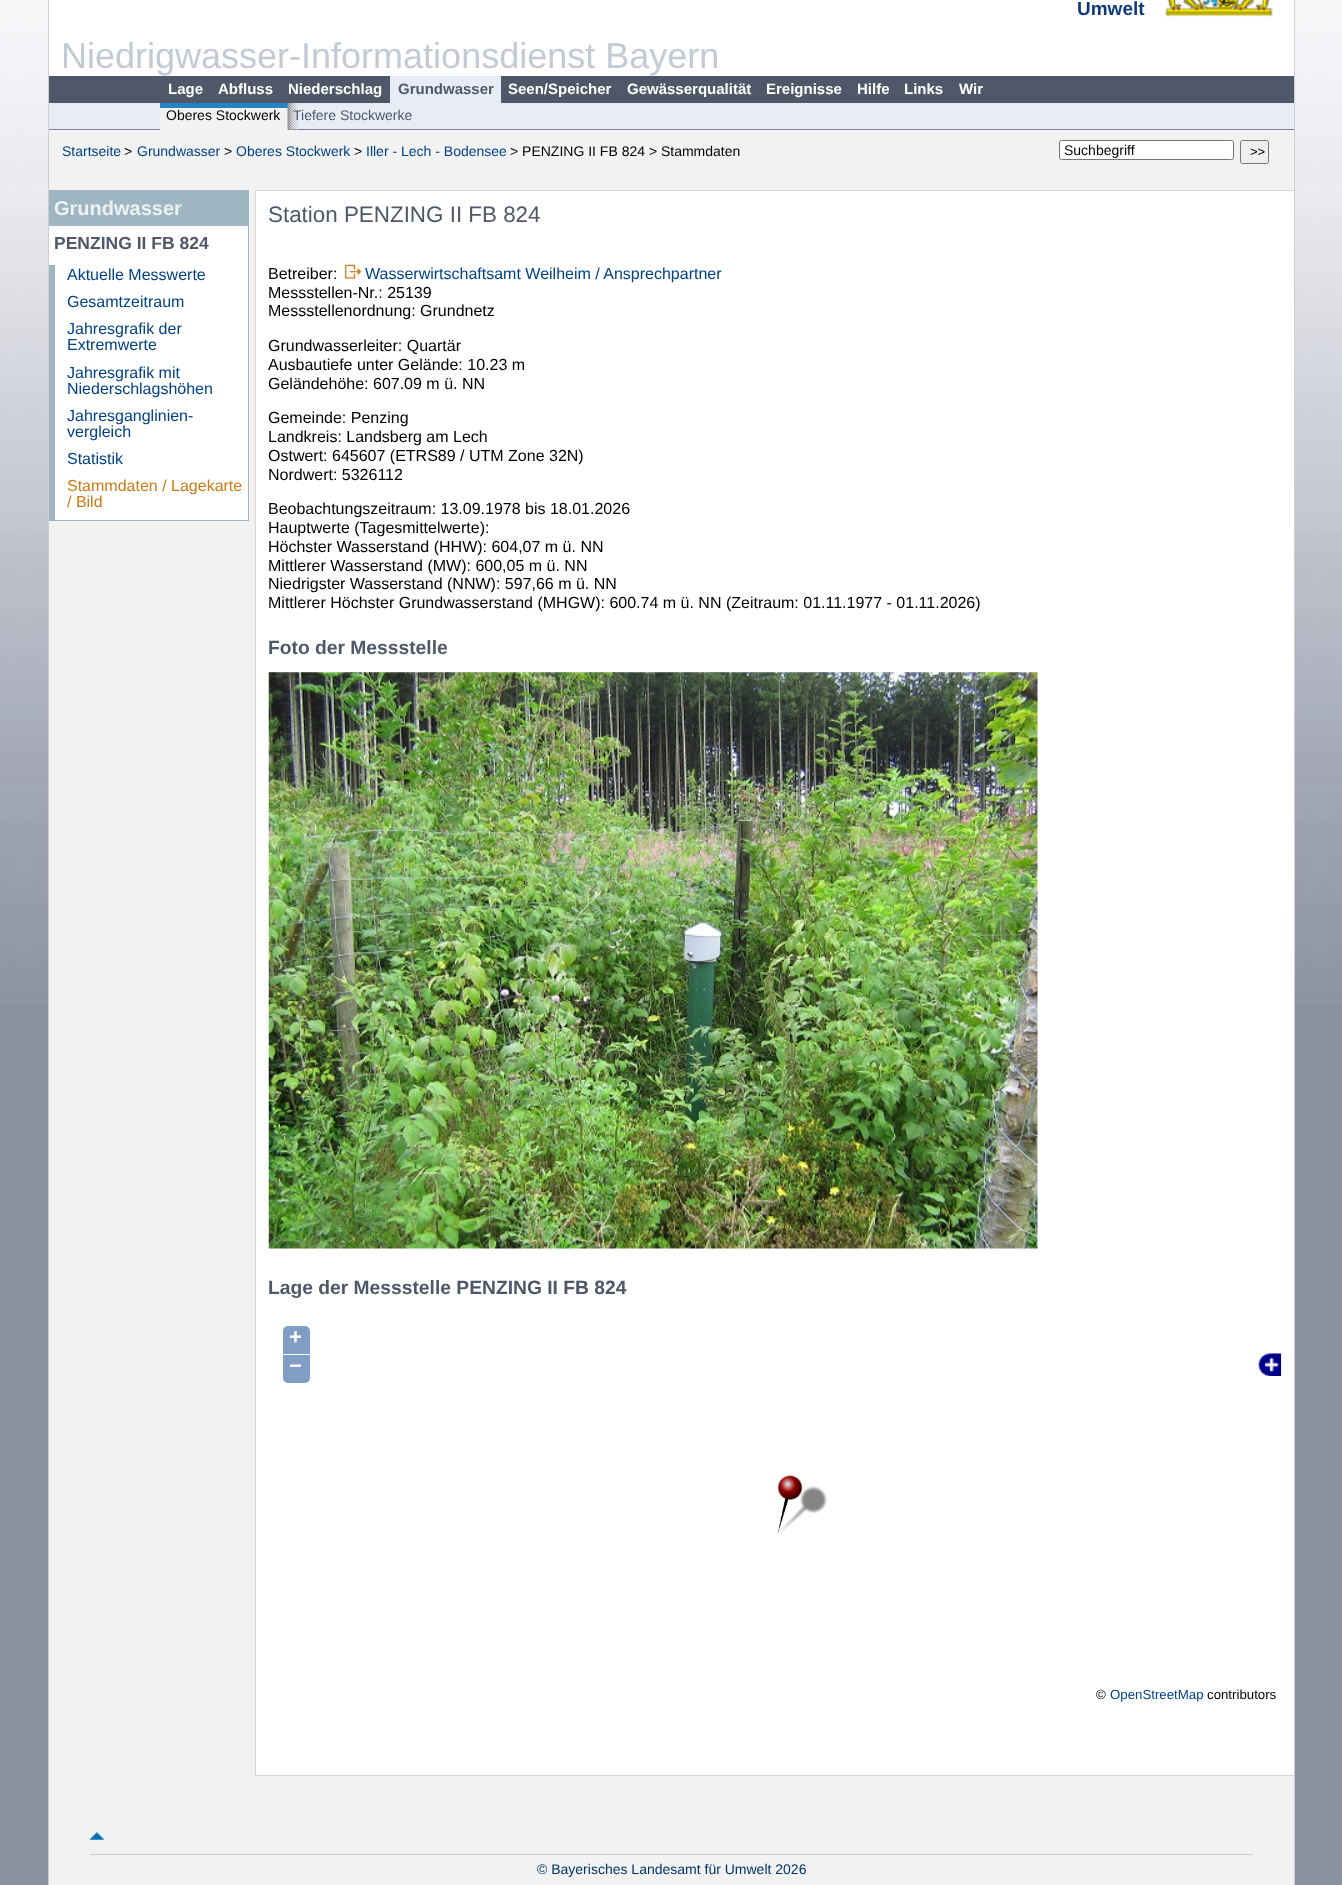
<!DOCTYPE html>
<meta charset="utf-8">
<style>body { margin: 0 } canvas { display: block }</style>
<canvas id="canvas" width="1342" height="1885"></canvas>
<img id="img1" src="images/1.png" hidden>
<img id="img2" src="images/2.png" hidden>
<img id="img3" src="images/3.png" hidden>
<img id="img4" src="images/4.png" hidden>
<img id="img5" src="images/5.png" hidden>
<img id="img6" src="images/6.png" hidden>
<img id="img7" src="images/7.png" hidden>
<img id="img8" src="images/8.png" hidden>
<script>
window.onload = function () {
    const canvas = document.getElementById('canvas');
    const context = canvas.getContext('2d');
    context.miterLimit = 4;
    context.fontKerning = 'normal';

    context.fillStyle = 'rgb(136, 145, 160)';
    context.fillRect(0, 0, 1342, 1885);
    context.drawImage(document.getElementById('img1'), 0, 0, 1342, 1006);
    context.fillStyle = 'rgb(255, 255, 255)';
    context.fillRect(49, 0, 1245, 76);
    context.fillStyle = 'rgb(206, 207, 212)';
    context.fillRect(1294, 0, 1, 1885);
    context.fillRect(48, 0, 1, 1885);
    context.drawImage(document.getElementById('img2'), 1165, 0, 108, 17);
    context.fillStyle = 'rgb(79, 88, 105)';
    context.fillRect(49, 76, 1245, 27);
    context.fillStyle = 'rgb(231, 236, 247)';
    context.fillRect(390, 76, 111, 27);
    context.fillRect(49, 103, 1245, 26);
    context.fillStyle = 'rgb(122, 130, 145)';
    context.fillRect(49, 129, 1245, 1);
    context.fillStyle = 'rgb(242, 242, 242)';
    context.fillRect(160, 108, 128, 22);
    context.fillStyle = 'rgb(36, 132, 198)';
    context.fillRect(160, 103, 128, 5);
    context.drawImage(document.getElementById('img3'), 287, 103, 12, 27);
    context.fillStyle = 'rgb(242, 242, 242)';
    context.fillRect(49, 130, 1245, 1755);
    context.fillStyle = 'rgb(255, 255, 255)';
    context.beginPath();
    context.roundRect(1059.5, 140.5, 174, 19, 2);
    context.fill();
    context.strokeStyle = 'rgb(118, 118, 118)';
    context.stroke();
    context.fillStyle = 'rgb(239, 239, 239)';
    context.beginPath();
    context.roundRect(1240.5, 140.5, 28, 23, 2);
    context.fill();
    context.stroke();
    context.fillStyle = 'rgb(255, 255, 255)';
    context.fillRect(49, 226, 199, 294);
    context.fillStyle = 'rgb(159, 181, 193)';
    context.fillRect(49, 190, 200, 1);
    context.fillRect(248, 190, 1, 331);
    context.fillRect(49, 520, 200, 1);
    context.fillRect(49, 191, 199, 35);
    context.fillRect(49, 265, 6, 255);
    context.fillStyle = 'rgb(255, 255, 255)';
    context.fillRect(256, 191, 1038, 1584);
    context.fillStyle = 'rgb(215, 215, 215)';
    context.fillRect(255, 190, 1039, 1);
    context.fillRect(255, 1775, 1039, 1);
    context.fillRect(255, 190, 1, 1586);
    context.drawImage(document.getElementById('img4'), 344, 264, 18, 15);
    context.drawImage(document.getElementById('img5'), 268, 672, 770, 577);
    context.fillStyle = 'rgb(128, 158, 196)';
    context.beginPath();
    context.roundRect(283, 1326, 27, 28, [5, 5, 0, 0]);
    context.fill();
    context.beginPath();
    context.roundRect(283, 1355, 27, 28, [0, 0, 5, 5]);
    context.fill();
    context.drawImage(document.getElementById('img6'), 1258, 1353, 24, 23);
    context.drawImage(document.getElementById('img7'), 777, 1475, 50, 59);
    context.drawImage(document.getElementById('img8'), 90, 1832, 14, 8);
    context.fillStyle = 'rgb(204, 204, 204)';
    context.fillRect(90, 1854, 1163, 1);
    context.font = 'bold 19px Liberation Sans';
    context.fillStyle = 'rgb(15, 59, 124)';
    context.fillText('Umwelt', 1077, 15);
    context.font = '36px Liberation Sans';
    context.fillStyle = 'rgb(195, 202, 212)';
    context.fillText('Niedrigwasser-Informationsdienst Bayern', 61, 68);
    context.font = 'bold 15px Liberation Sans';
    context.fillStyle = 'rgb(255, 255, 255)';
    context.fillText('Lage', 168, 94);
    context.fillText('Abfluss', 218, 94);
    context.fillText('Niederschlag', 288, 94);
    context.fillStyle = 'rgb(79, 88, 105)';
    context.fillText('Grundwasser', 398, 94);
    context.fillStyle = 'rgb(255, 255, 255)';
    context.fillText('Seen/Speicher', 508, 94);
    context.fillText('Gewässerqualität', 627, 94);
    context.fillText('Ereignisse', 766, 94);
    context.fillText('Hilfe', 857, 94);
    context.fillText('Links', 904, 94);
    context.fillText('Wir', 959, 94);
    context.font = '14px Liberation Sans';
    context.fillStyle = 'rgb(0, 0, 0)';
    context.fillText('Oberes Stockwerk', 166, 120);
    context.fillStyle = 'rgb(79, 88, 105)';
    context.fillText('Tiefere Stockwerke', 293, 120);
    context.fillStyle = 'rgb(0, 65, 133)';
    context.fillText('Startseite', 62, 156);
    context.fillStyle = 'rgb(0, 0, 0)';
    context.fillText('>', 124, 156);
    context.fillStyle = 'rgb(0, 65, 133)';
    context.fillText('Grundwasser', 137, 156);
    context.fillStyle = 'rgb(0, 0, 0)';
    context.fillText('>', 224, 156);
    context.fillStyle = 'rgb(0, 65, 133)';
    context.fillText('Oberes Stockwerk', 236, 156);
    context.fillStyle = 'rgb(0, 0, 0)';
    context.fillText('>', 354, 156);
    context.fillStyle = 'rgb(0, 65, 133)';
    context.fillText('Iller - Lech - Bodensee', 366, 156);
    context.fillStyle = 'rgb(0, 0, 0)';
    context.fillText('> PENZING II FB 824 > Stammdaten', 510, 156);
    context.fillText('Suchbegriff', 1064, 155);
    context.font = '13px Liberation Sans';
    context.fillText('>>', 1250, 156);
    context.font = 'bold 20px Liberation Sans';
    context.fillStyle = 'rgb(237, 241, 243)';
    context.fillText('Grundwasser', 54, 215);
    context.font = 'bold 17.5px Liberation Sans';
    context.fillStyle = 'rgb(79, 88, 105)';
    context.fillText('PENZING II FB 824', 54, 249);
    context.font = '16px Liberation Sans';
    context.fillStyle = 'rgb(0, 65, 133)';
    context.fillText('Aktuelle Messwerte', 67, 280);
    context.fillText('Gesamtzeitraum', 67, 307);
    context.fillText('Jahresgrafik der', 67, 334);
    context.fillText('Extremwerte', 67, 350);
    context.fillText('Jahresgrafik mit', 67, 378);
    context.fillText('Niederschlagshöhen', 67, 394);
    context.fillText('Jahresganglinien-', 67, 421);
    context.fillText('vergleich', 67, 437);
    context.fillText('Statistik', 67, 464);
    context.fillStyle = 'rgb(204, 123, 23)';
    context.fillText('Stammdaten / Lagekarte', 67, 491);
    context.fillText('/ Bild', 67, 507);
    context.font = '22.4px Liberation Sans';
    context.fillStyle = 'rgb(79, 88, 105)';
    context.fillText('Station PENZING II FB 824', 268, 222);
    context.font = '16px Liberation Sans';
    context.fillStyle = 'rgb(0, 0, 0)';
    context.fillText('Betreiber:', 268, 279);
    context.fillStyle = 'rgb(0, 65, 133)';
    context.fillText('Wasserwirtschaftsamt Weilheim / Ansprechpartner', 365, 279);
    context.fillStyle = 'rgb(0, 0, 0)';
    context.fillText('Messstellen-Nr.: 25139', 268, 298);
    context.fillText('Messstellenordnung: Grundnetz', 268, 316);
    context.fillText('Grundwasserleiter: Quartär', 268, 351);
    context.fillText('Ausbautiefe unter Gelände: 10.23 m', 268, 370);
    context.fillText('Geländehöhe: 607.09 m ü. NN', 268, 389);
    context.fillText('Gemeinde: Penzing', 268, 423);
    context.fillText('Landkreis: Landsberg am Lech', 268, 442);
    context.fillText('Ostwert: 645607 (ETRS89 / UTM Zone 32N)', 268, 461);
    context.fillText('Nordwert: 5326112', 268, 480);
    context.fillText('Beobachtungszeitraum: 13.09.1978 bis 18.01.2026', 268, 514);
    context.fillText('Hauptwerte (Tagesmittelwerte):', 268, 533);
    context.fillText('Höchster Wasserstand (HHW): 604,07 m ü. NN', 268, 552);
    context.fillText('Mittlerer Wasserstand (MW): 600,05 m ü. NN', 268, 571);
    context.fillText('Niedrigster Wasserstand (NNW): 597,66 m ü. NN', 268, 589);
    context.fillText('Mittlerer Höchster Grundwasserstand (MHGW): 600.74 m ü. NN (Zeitraum: 01.11.1977 - 01.11.2026)', 268, 608);
    context.font = 'bold 19.25px Liberation Sans';
    context.fillStyle = 'rgb(79, 88, 105)';
    context.fillText('Foto der Messstelle', 268, 654);
    context.fillText('Lage der Messstelle PENZING II FB 824', 268, 1294);
    context.font = 'bold 22px Liberation Sans';
    context.fillStyle = 'rgb(255, 255, 255)';
    context.fillText('+', 289, 1344);
    context.fillText('−', 289, 1373);
    context.font = '13.25px Liberation Sans';
    context.fillStyle = 'rgb(0, 0, 0)';
    context.fillText('©', 1096, 1699);
    context.fillStyle = 'rgb(0, 65, 133)';
    context.fillText('OpenStreetMap', 1110, 1699);
    context.fillStyle = 'rgb(0, 0, 0)';
    context.fillText('contributors', 1207, 1699);
    context.font = '14px Liberation Sans';
    context.fillStyle = 'rgb(0, 51, 102)';
    context.fillText('© Bayerisches Landesamt für Umwelt 2026', 537, 1874);
};
</script>
